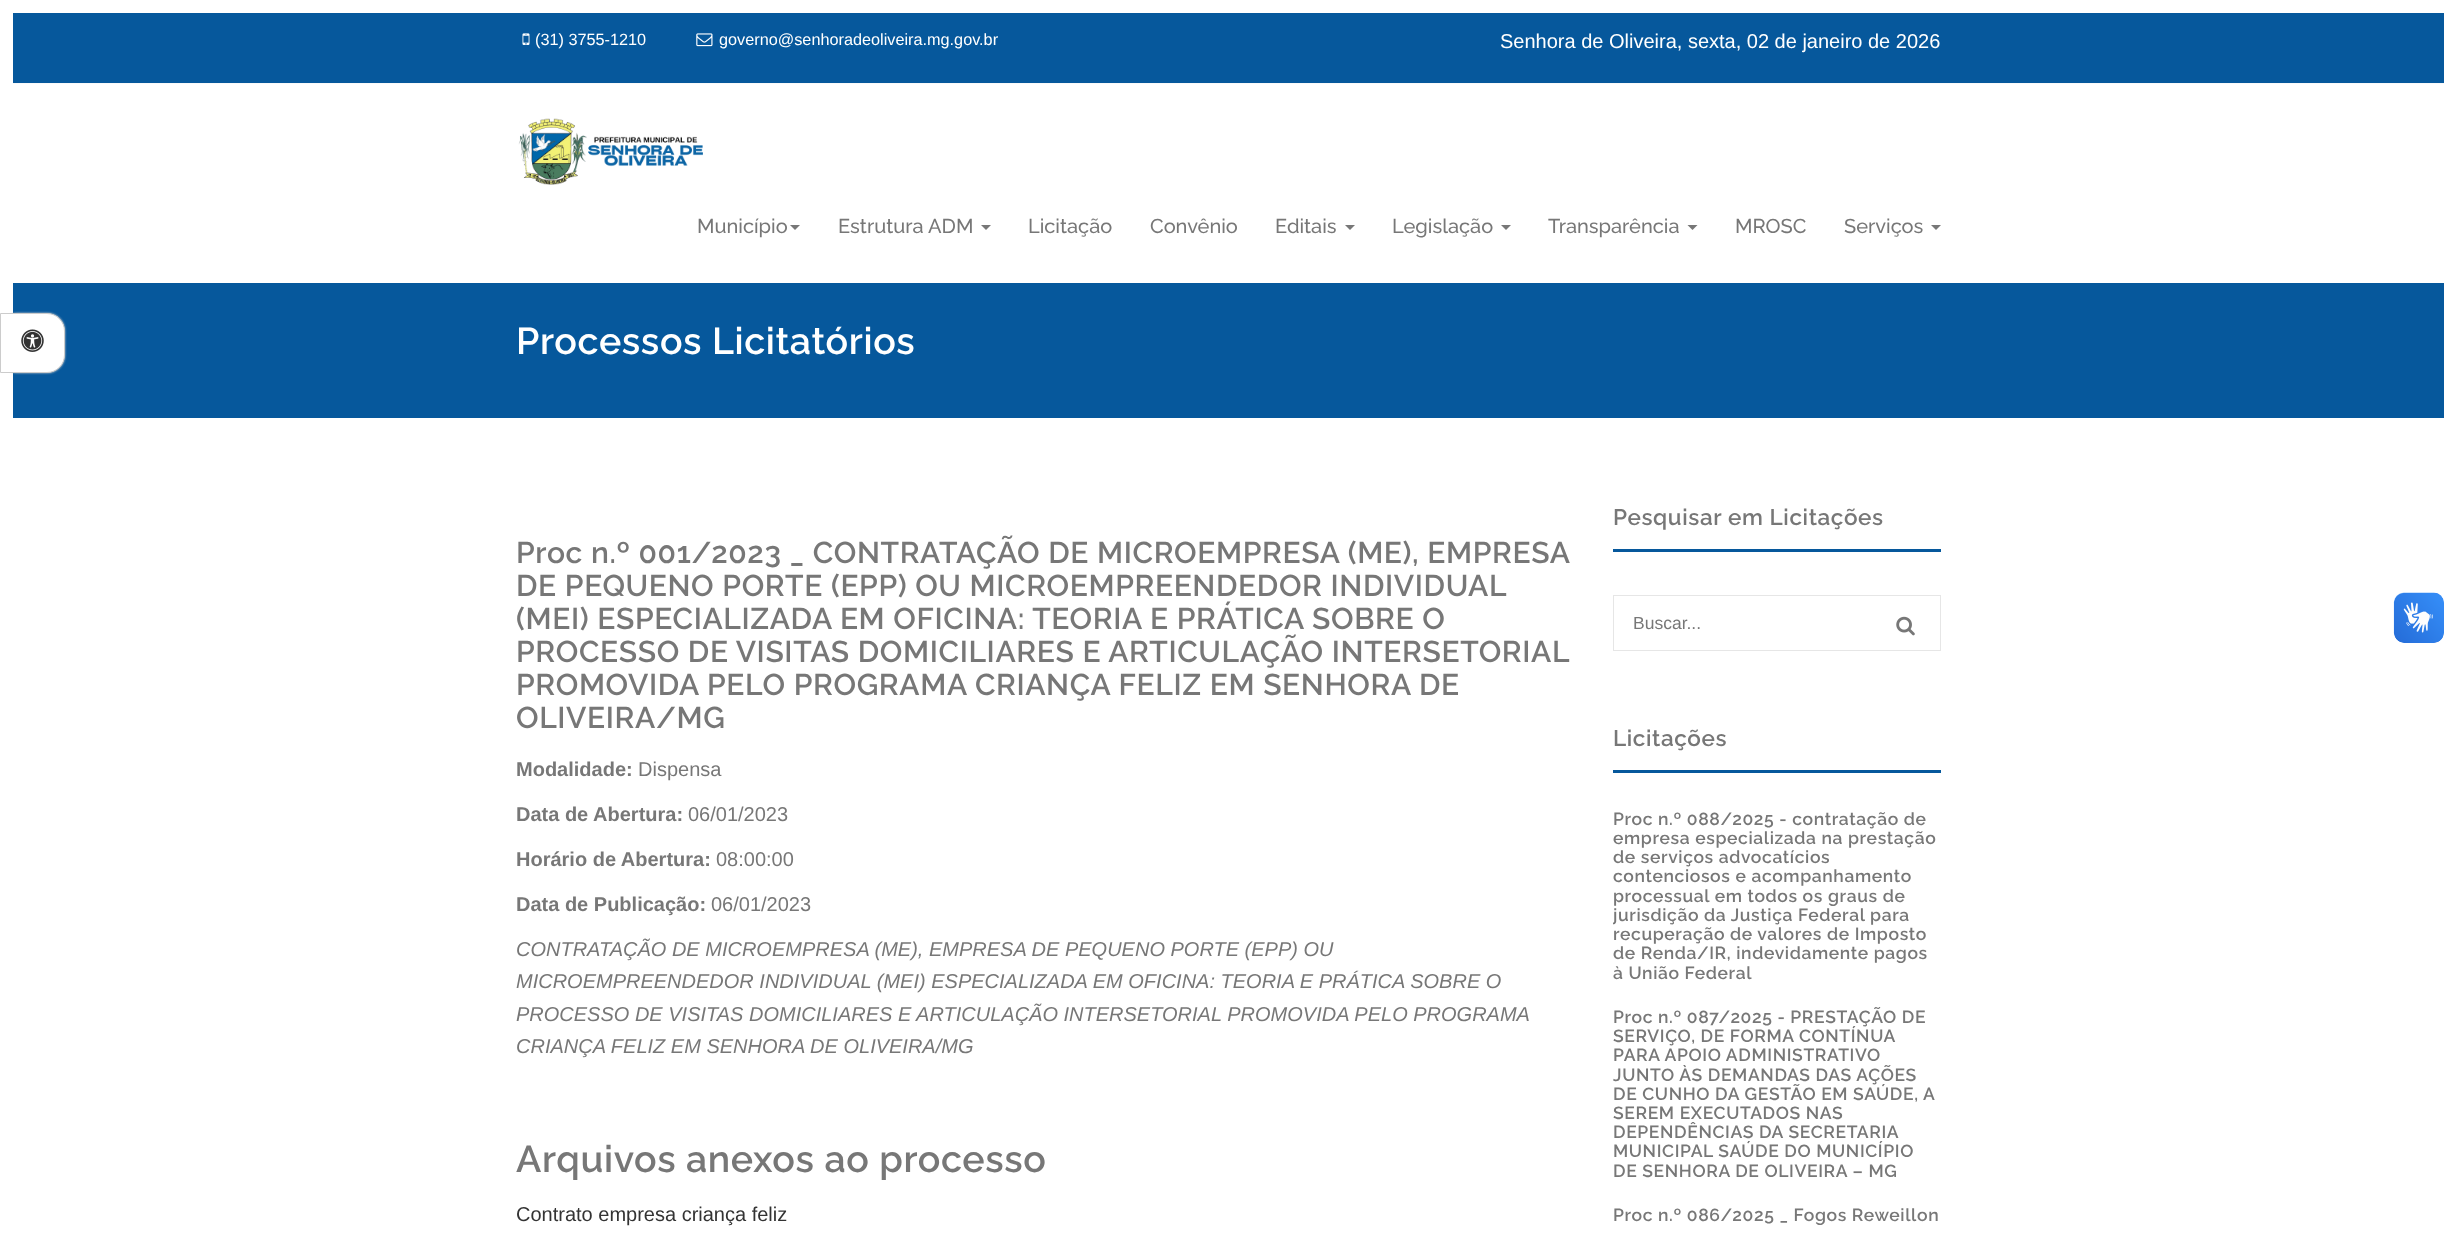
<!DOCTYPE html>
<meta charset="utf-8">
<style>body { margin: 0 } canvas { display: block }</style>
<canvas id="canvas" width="2456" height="1235"></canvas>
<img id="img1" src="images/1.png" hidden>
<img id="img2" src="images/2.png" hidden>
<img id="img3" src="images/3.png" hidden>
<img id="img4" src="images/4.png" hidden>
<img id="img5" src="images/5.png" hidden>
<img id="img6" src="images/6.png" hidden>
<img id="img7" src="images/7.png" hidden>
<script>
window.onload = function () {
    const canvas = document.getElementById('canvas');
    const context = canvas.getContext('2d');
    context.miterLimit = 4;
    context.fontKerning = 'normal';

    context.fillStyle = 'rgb(255, 255, 255)';
    context.fillRect(0, 0, 2456, 1235);
    context.fillStyle = 'rgb(6, 88, 156)';
    context.fillRect(13, 13, 2431, 70);
    context.fillStyle = 'rgb(249, 249, 249)';
    context.fillRect(13, 83, 2431, 1);
    context.drawImage(document.getElementById('img1'), 522, 33, 8, 12);
    context.drawImage(document.getElementById('img2'), 696, 33, 17, 14);
    context.drawImage(document.getElementById('img3'), 518, 118, 185, 67);
    context.fillStyle = 'rgb(119, 119, 119)';
    context.beginPath();
    context.moveTo(790, 225);
    context.lineTo(800, 225);
    context.lineTo(795, 230);
    context.closePath();
    context.fill();
    context.beginPath();
    context.moveTo(981, 225);
    context.lineTo(991, 225);
    context.lineTo(986, 230);
    context.closePath();
    context.fill();
    context.beginPath();
    context.moveTo(1345, 225);
    context.lineTo(1355, 225);
    context.lineTo(1350, 230);
    context.closePath();
    context.fill();
    context.beginPath();
    context.moveTo(1501, 225);
    context.lineTo(1511, 225);
    context.lineTo(1506, 230);
    context.closePath();
    context.fill();
    context.beginPath();
    context.moveTo(1687.5, 225);
    context.lineTo(1697.5, 225);
    context.lineTo(1692.5, 230);
    context.closePath();
    context.fill();
    context.beginPath();
    context.moveTo(1931, 225);
    context.lineTo(1941, 225);
    context.lineTo(1936, 230);
    context.closePath();
    context.fill();
    context.fillStyle = 'rgb(6, 88, 156)';
    context.fillRect(13, 283, 2431, 135);
    context.fillStyle = 'rgb(204, 204, 204)';
    context.filter = 'blur(1px)';
    context.beginPath();
    context.roundRect(0, 313, 65, 60, 18);
    context.fill();
    context.filter = 'none';
    context.fillStyle = 'rgb(255, 255, 255)';
    context.beginPath();
    context.roundRect(0.5, 313.5, 64, 59, [0, 17.5, 17.5, 0]);
    context.fill();
    context.strokeStyle = 'rgb(204, 204, 204)';
    context.stroke();
    context.drawImage(document.getElementById('img4'), 21, 329, 23, 23);
    context.fillStyle = 'rgb(6, 88, 156)';
    context.fillRect(1613, 549, 328, 3);
    context.strokeStyle = 'rgb(230, 230, 230)';
    context.strokeRect(1613.5, 595.5, 327, 55);
    context.drawImage(document.getElementById('img5'), 1896, 616, 19, 20);
    context.fillRect(1613, 770, 328, 3);
    context.drawImage(document.getElementById('img6'), 2393, 592, 51, 51);
    context.drawImage(document.getElementById('img7'), 2394, 593, 50, 50);
    context.font = '16.25px Liberation Sans';
    context.fillStyle = 'rgb(255, 255, 255)';
    context.fillText('(31) 3755-1210', 535, 45);
    context.fillText('governo@senhoradeoliveira.mg.gov.br', 719, 45);
    context.font = '20px Liberation Sans';
    context.fillText('Senhora de Oliveira, sexta, 02 de janeiro de 2026', 1500, 48);
    context.font = '500 20px Raleway';
    context.fillStyle = 'rgb(119, 119, 119)';
    context.fillText('Município', 697, 233);
    context.fillText('Estrutura ADM', 838, 233);
    context.fillText('Licitação', 1028, 233);
    context.fillText('Convênio', 1150, 233);
    context.fillText('Editais', 1275, 233);
    context.fillText('Legislação', 1392, 233);
    context.fillText('Transparência', 1548, 233);
    context.fillText('MROSC', 1735, 233);
    context.fillText('Serviços', 1844, 233);
    context.letterSpacing = '0.62px';
    context.font = '600 37.5px Raleway';
    context.fillStyle = 'rgb(255, 255, 255)';
    context.fillText('Processos Licitatórios', 516, 354);
    context.font = '600 30px Raleway';
    context.fillStyle = 'rgb(119, 119, 119)';
    context.fillText('Proc n.º 001/2023 _ CONTRATAÇÃO DE MICROEMPRESA (ME), EMPRESA', 516, 563);
    context.fillText('DE PEQUENO PORTE (EPP) OU MICROEMPREENDEDOR INDIVIDUAL', 516, 596);
    context.fillText('(MEI) ESPECIALIZADA EM OFICINA: TEORIA E PRÁTICA SOBRE O', 516, 629);
    context.fillText('PROCESSO DE VISITAS DOMICILIARES E ARTICULAÇÃO INTERSETORIAL', 516, 662);
    context.fillText('PROMOVIDA PELO PROGRAMA CRIANÇA FELIZ EM SENHORA DE', 516, 695);
    context.fillText('OLIVEIRA/MG', 516, 728);
    context.letterSpacing = '0px';
    context.font = 'bold 20px Liberation Sans';
    context.fillText('Modalidade:', 516, 776);
    context.font = '20px Liberation Sans';
    context.fillText('Dispensa', 638, 776);
    context.font = 'bold 20px Liberation Sans';
    context.fillText('Data de Abertura:', 516, 821);
    context.font = '20px Liberation Sans';
    context.fillText('06/01/2023', 688, 821);
    context.font = 'bold 20px Liberation Sans';
    context.fillText('Horário de Abertura:', 516, 866);
    context.font = '20px Liberation Sans';
    context.fillText('08:00:00', 716, 866);
    context.font = 'bold 20px Liberation Sans';
    context.fillText('Data de Publicação:', 516, 911);
    context.font = '20px Liberation Sans';
    context.fillText('06/01/2023', 711, 911);
    context.font = 'italic 20px Liberation Sans';
    context.fillText('CONTRATAÇÃO DE MICROEMPRESA (ME), EMPRESA DE PEQUENO PORTE (EPP) OU', 516, 956);
    context.fillText('MICROEMPREENDEDOR INDIVIDUAL (MEI) ESPECIALIZADA EM OFICINA: TEORIA E PRÁTICA SOBRE O', 516, 988);
    context.fillText('PROCESSO DE VISITAS DOMICILIARES E ARTICULAÇÃO INTERSETORIAL PROMOVIDA PELO PROGRAMA', 516, 1021);
    context.fillText('CRIANÇA FELIZ EM SENHORA DE OLIVEIRA/MG', 516, 1053);
    context.letterSpacing = '0.62px';
    context.font = '600 37.5px Raleway';
    context.fillText('Arquivos anexos ao processo', 516, 1172);
    context.letterSpacing = '0px';
    context.font = '20px Liberation Sans';
    context.fillStyle = 'rgb(51, 51, 51)';
    context.fillText('Contrato empresa criança feliz', 516, 1221);
    context.letterSpacing = '0.62px';
    context.font = '600 22.5px Raleway';
    context.fillStyle = 'rgb(119, 119, 119)';
    context.fillText('Pesquisar em Licitações', 1613, 525);
    context.letterSpacing = '0px';
    context.font = '17.5px Liberation Sans';
    context.fillText('Buscar...', 1633, 629);
    context.letterSpacing = '0.62px';
    context.font = '600 22.5px Raleway';
    context.fillText('Licitações', 1613, 746);
    context.font = '600 17.5px Raleway';
    context.fillText('Proc n.º 088/2025 - contratação de', 1613, 825);
    context.fillText('empresa especializada na prestação', 1613, 844);
    context.fillText('de serviços advocatícios', 1613, 863);
    context.fillText('contenciosos e acompanhamento', 1613, 882);
    context.fillText('processual em todos os graus de', 1613, 902);
    context.save();
    context.beginPath();
    context.rect(1613, 726, 328, 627);
    context.clip();
    context.fillText('jurisdição da Justiça Federal para', 1613, 921);
    context.restore();
    context.fillText('recuperação de valores de Imposto', 1613, 940);
    context.fillText('de Renda/IR, indevidamente pagos', 1613, 959);
    context.fillText('à União Federal', 1613, 979);
    context.fillText('Proc n.º 087/2025 - PRESTAÇÃO DE', 1613, 1023);
    context.fillText('SERVIÇO, DE FORMA CONTÍNUA', 1613, 1042);
    context.fillText('PARA APOIO ADMINISTRATIVO', 1613, 1061);
    context.fillText('JUNTO ÀS DEMANDAS DAS AÇÕES', 1613, 1081);
    context.fillText('DE CUNHO DA GESTÃO EM SAÚDE, A', 1613, 1100);
    context.fillText('SEREM EXECUTADOS NAS', 1613, 1119);
    context.fillText('DEPENDÊNCIAS DA SECRETARIA', 1613, 1138);
    context.fillText('MUNICIPAL SAÚDE DO MUNICÍPIO', 1613, 1157);
    context.fillText('DE SENHORA DE OLIVEIRA – MG', 1613, 1177);
    context.fillText('Proc n.º 086/2025 _ Fogos Reweillon', 1613, 1221);
};
</script>
